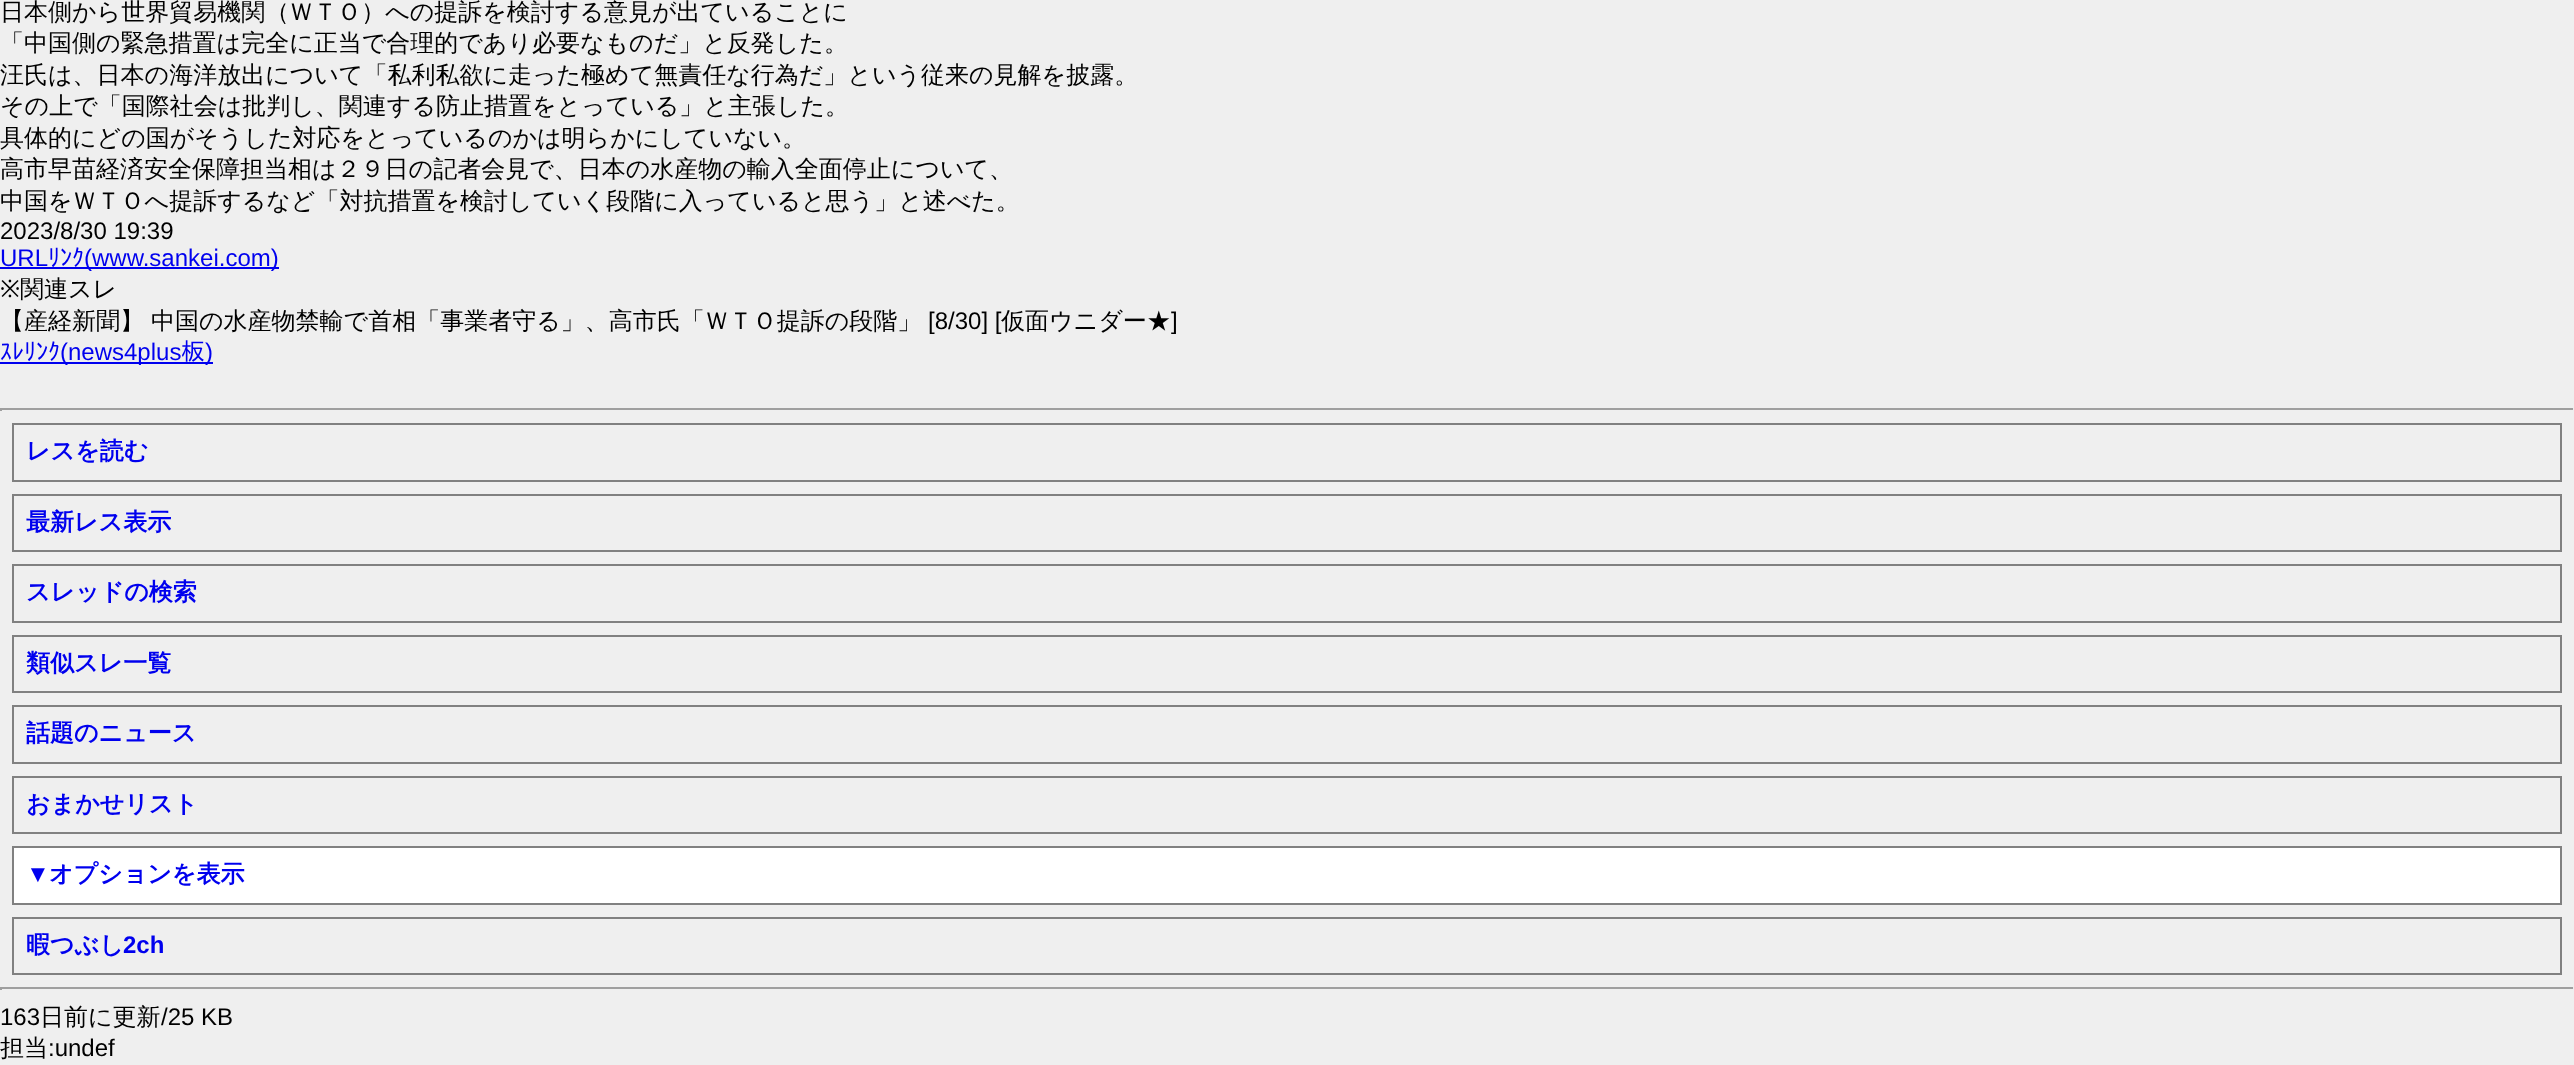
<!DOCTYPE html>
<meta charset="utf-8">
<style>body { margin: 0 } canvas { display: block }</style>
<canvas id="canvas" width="2574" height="1065"></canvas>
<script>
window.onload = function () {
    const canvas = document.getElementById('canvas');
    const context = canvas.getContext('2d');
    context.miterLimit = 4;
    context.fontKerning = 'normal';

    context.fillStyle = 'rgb(239, 239, 239)';
    context.fillRect(0, 0, 2574, 1065);
    context.fillStyle = 'rgb(0, 0, 238)';
    context.fillRect(0, 267, 279, 2);
    context.fillRect(0, 362, 213, 2);
    context.fillStyle = 'rgb(159, 159, 159)';
    context.fillRect(0, 408, 2574, 2);
    context.fillStyle = 'rgb(238, 238, 238)';
    context.fillRect(2573, 408, 1, 3);
    context.fillStyle = 'rgb(159, 159, 159)';
    context.fillRect(0, 408, 2, 3);
    context.strokeStyle = 'rgb(128, 128, 128)';
    context.lineWidth = 2;
    context.strokeRect(13, 424, 2548, 57);
    context.strokeRect(13, 495, 2548, 56);
    context.strokeRect(13, 565, 2548, 57);
    context.strokeRect(13, 636, 2548, 56);
    context.strokeRect(13, 706, 2548, 57);
    context.strokeRect(13, 777, 2548, 56);
    context.fillStyle = 'rgb(255, 255, 255)';
    context.beginPath();
    context.rect(13, 847, 2548, 57);
    context.fill();
    context.stroke();
    context.strokeRect(13, 918, 2548, 56);
    context.fillStyle = 'rgb(159, 159, 159)';
    context.fillRect(0, 987, 2574, 2);
    context.fillStyle = 'rgb(238, 238, 238)';
    context.fillRect(2573, 987, 1, 3);
    context.fillStyle = 'rgb(159, 159, 159)';
    context.fillRect(0, 987, 2, 3);
    context.font = '500 24px WenQuanYi Zen Hei';
    context.fillStyle = 'rgb(0, 0, 0)';
    context.fillText('日本側から世界貿易機関（ＷＴＯ）への提訴を検討する意見が出ていることに', 0, 20);
    context.fillText('「中国側の緊急措置は完全に正当で合理的であり必要なものだ」と反発した。', 0, 51);
    context.fillText('汪氏は、日本の海洋放出について「私利私欲に走った極めて無責任な行為だ」という従来の見解を披露。', 0, 83);
    context.fillText('その上で「国際社会は批判し、関連する防止措置をとっている」と主張した。', 0, 114);
    context.fillText('具体的にどの国がそうした対応をとっているのかは明らかにしていない。', 0, 146);
    context.fillText('高市早苗経済安全保障担当相は２９日の記者会見で、日本の水産物の輸入全面停止について、', 0, 177);
    context.fillText('中国をＷＴＯへ提訴するなど「対抗措置を検討していく段階に入っていると思う」と述べた。', 0, 209);
    context.font = '24px Liberation Sans';
    context.fillText('2023/8/30 19:39', 0, 239);
    context.fillStyle = 'rgb(0, 0, 238)';
    context.fillText('URL', 0, 266);
    context.font = '24px IPAGothic';
    context.fillText('ﾘﾝｸ', 48, 266);
    context.font = '24px Liberation Sans';
    context.fillText('(www.sankei.com)', 84, 266);
    context.font = '24px Noto Sans';
    context.fillStyle = 'rgb(0, 0, 0)';
    context.fillText('※', 0, 297);
    context.font = '500 24px WenQuanYi Zen Hei';
    context.fillText('関連スレ', 20, 297);
    context.fillText('【産経新聞】', 0, 329);
    context.fillText('中国の水産物禁輸で首相「事業者守る」、高市氏「ＷＴＯ提訴の段階」', 151, 329);
    context.font = '24px Liberation Sans';
    context.fillText('[8/30] [', 928, 329);
    context.font = '500 24px WenQuanYi Zen Hei';
    context.fillText('仮面ウニダー★', 1001, 329);
    context.font = '24px Liberation Sans';
    context.fillText(']', 1171, 329);
    context.font = '24px IPAGothic';
    context.fillStyle = 'rgb(0, 0, 238)';
    context.fillText('ｽﾚﾘﾝｸ', 0, 360);
    context.font = '24px Liberation Sans';
    context.fillText('(news4plus', 60, 360);
    context.font = '24px IPAGothic';
    context.fillText('板', 181, 360);
    context.font = '24px Liberation Sans';
    context.fillText(')', 205, 360);
    context.font = 'bold 24px WenQuanYi Zen Hei';
    context.fillText('レスを読む', 26, 459);
    context.fillText('最新レス表示', 26, 530);
    context.fillText('スレッドの検索', 26, 600);
    context.fillText('類似スレ一覧', 26, 671);
    context.fillText('話題のニュース', 26, 741);
    context.fillText('おまかせリスト', 26, 812);
    context.font = 'bold 24px Liberation Sans';
    context.fillText('▼', 26, 882);
    context.font = 'bold 24px WenQuanYi Zen Hei';
    context.fillText('オプションを表示', 49, 882);
    context.fillText('暇つぶし', 26, 953);
    context.font = 'bold 24px Liberation Sans';
    context.fillText('2ch', 123, 953);
    context.font = '24px Liberation Sans';
    context.fillStyle = 'rgb(0, 0, 0)';
    context.fillText('163', 0, 1025);
    context.font = '500 24px WenQuanYi Zen Hei';
    context.fillText('日前に更新', 40, 1025);
    context.font = '24px Liberation Sans';
    context.fillText('/25 KB', 161, 1025);
    context.font = '500 24px WenQuanYi Zen Hei';
    context.fillText('担当', 0, 1056);
    context.font = '24px Liberation Sans';
    context.fillText(':undef', 48, 1056);
};
</script>
